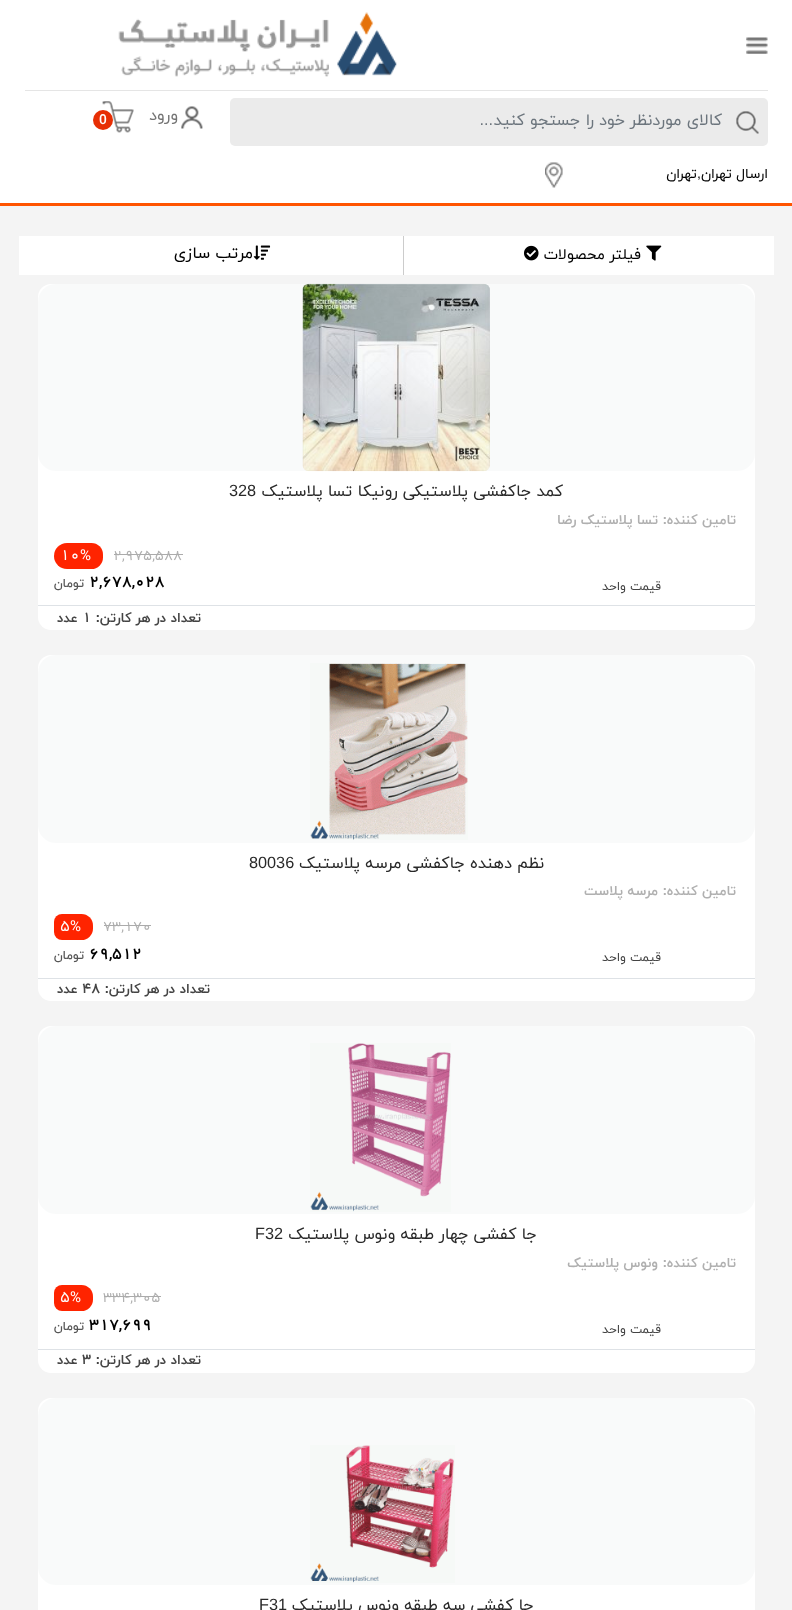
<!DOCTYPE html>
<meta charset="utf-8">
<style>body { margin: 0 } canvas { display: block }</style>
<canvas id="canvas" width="792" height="1610"></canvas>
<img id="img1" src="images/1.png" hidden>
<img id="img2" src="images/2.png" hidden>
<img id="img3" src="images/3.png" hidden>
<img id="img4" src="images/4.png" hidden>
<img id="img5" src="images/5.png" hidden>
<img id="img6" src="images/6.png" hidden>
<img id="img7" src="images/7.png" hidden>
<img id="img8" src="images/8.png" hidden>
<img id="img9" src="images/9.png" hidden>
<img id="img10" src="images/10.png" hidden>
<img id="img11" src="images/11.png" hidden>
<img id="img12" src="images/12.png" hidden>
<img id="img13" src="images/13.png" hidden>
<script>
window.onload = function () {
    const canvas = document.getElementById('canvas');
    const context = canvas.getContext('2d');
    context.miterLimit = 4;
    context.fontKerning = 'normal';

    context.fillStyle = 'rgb(244, 244, 244)';
    context.fillRect(0, 0, 792, 1610);
    context.fillStyle = 'rgb(255, 255, 255)';
    context.fillRect(0, 0, 792, 203);
    context.fillStyle = 'rgb(255, 84, 0)';
    context.fillRect(0, 203, 792, 3);
    context.fillStyle = 'rgb(229, 229, 229)';
    context.fillRect(25, 90, 743, 1);
    context.drawImage(document.getElementById('img1'), 746, 37, 22, 17);
    context.drawImage(document.getElementById('img2'), 118, 12, 279, 65);
    context.fillStyle = 'rgb(235, 235, 235)';
    context.beginPath();
    context.roundRect(230, 98, 538, 48, 5);
    context.fill();
    context.drawImage(document.getElementById('img3'), 736, 111, 23, 23);
    context.drawImage(document.getElementById('img4'), 181, 106, 22, 23);
    context.drawImage(document.getElementById('img5'), 102, 101, 32, 32);
    context.fillStyle = 'rgb(231, 46, 4)';
    context.beginPath();
    context.arc(103, 120, 10, 0, 2 * Math.PI);
    context.fill();
    context.drawImage(document.getElementById('img6'), 545, 162, 18, 26);
    context.fillStyle = 'rgb(255, 255, 255)';
    context.fillRect(19, 236, 755, 39);
    context.drawImage(document.getElementById('img7'), 646, 245, 16, 16);
    context.drawImage(document.getElementById('img8'), 524, 245, 15, 16);
    context.fillStyle = 'rgb(204, 204, 204)';
    context.fillRect(403, 236, 1, 39);
    context.drawImage(document.getElementById('img9'), 253, 245, 18, 15);
    context.fillStyle = 'rgb(255, 255, 255)';
    context.beginPath();
    context.roundRect(38, 284, 717, 346, 13);
    context.fill();
    context.drawImage(document.getElementById('img10'), 302, 283, 188, 189);
    context.fillStyle = 'rgba(193, 195, 202, 0.09)';
    context.beginPath();
    context.roundRect(38, 284, 717, 187, 18);
    context.fill();
    context.fillStyle = 'rgb(255, 36, 0)';
    context.beginPath();
    context.roundRect(54, 543, 26, 26, [13, 0, 0, 13]);
    context.fill();
    context.beginPath();
    context.roundRect(80, 543, 23, 26, [0, 11.5, 11.5, 0]);
    context.fill();
    context.fillStyle = 'rgb(222, 226, 230)';
    context.fillRect(38, 605, 717, 1);
    context.fillStyle = 'rgb(255, 255, 255)';
    context.beginPath();
    context.roundRect(38, 655, 717, 346, 13);
    context.fill();
    context.drawImage(document.getElementById('img11'), 310, 663, 158, 177);
    context.fillStyle = 'rgba(193, 195, 202, 0.09)';
    context.beginPath();
    context.roundRect(38, 655, 717, 188, 18);
    context.fill();
    context.fillStyle = 'rgb(255, 36, 0)';
    context.beginPath();
    context.roundRect(54, 914, 16, 26, [8, 0, 0, 8]);
    context.fill();
    context.beginPath();
    context.roundRect(70, 914, 23, 26, [0, 11.5, 11.5, 0]);
    context.fill();
    context.fillStyle = 'rgb(222, 226, 230)';
    context.fillRect(38, 978, 717, 1);
    context.fillStyle = 'rgb(255, 255, 255)';
    context.beginPath();
    context.roundRect(38, 1026, 717, 347, 13);
    context.fill();
    context.drawImage(document.getElementById('img12'), 310, 1043, 141, 169);
    context.fillStyle = 'rgba(193, 195, 202, 0.09)';
    context.beginPath();
    context.roundRect(38, 1026, 717, 188, 18);
    context.fill();
    context.fillStyle = 'rgb(255, 36, 0)';
    context.beginPath();
    context.roundRect(54, 1285, 16, 26, [8, 0, 0, 8]);
    context.fill();
    context.beginPath();
    context.roundRect(70, 1285, 23, 26, [0, 11.5, 11.5, 0]);
    context.fill();
    context.fillStyle = 'rgb(222, 226, 230)';
    context.fillRect(38, 1349, 717, 1);
    context.fillStyle = 'rgb(255, 255, 255)';
    context.beginPath();
    context.roundRect(38, 1398, 717, 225, 13);
    context.fill();
    context.drawImage(document.getElementById('img13'), 310, 1445, 145, 138);
    context.fillStyle = 'rgba(193, 195, 202, 0.09)';
    context.beginPath();
    context.roundRect(38, 1398, 717, 187, 18);
    context.fill();
    context.direction = 'rtl';
    context.font = '16.25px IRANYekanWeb';
    context.fillStyle = 'rgb(108, 117, 125)';
    context.fillText('کالای موردنظر خود را جستجو کنید', 722, 125);
    context.font = '16.25px Liberation Sans';
    context.fillText('...', 493, 125);
    context.font = '16.25px IRANYekanWeb';
    context.fillStyle = 'rgb(116, 116, 116)';
    context.fillText('ورود', 178, 120);
    context.direction = 'ltr';
    context.font = '500 13.75px IRANYekanWeb';
    context.fillStyle = 'rgb(255, 255, 255)';
    context.fillText('0', 99, 124);
    context.direction = 'rtl';
    context.font = '14px IRANYekanWeb';
    context.fillStyle = 'rgb(0, 0, 0)';
    context.fillText('ارسال تهران', 768, 178);
    context.font = '14px Liberation Sans';
    context.fillText(',', 701, 178);
    context.font = '14px IRANYekanWeb';
    context.fillText('تهران', 697, 178);
    context.font = '15px IRANYekanWeb';
    context.fillText('فیلتر محصولات', 641, 259);
    context.font = '16.25px IRANYekanWeb';
    context.fillText('مرتب سازی', 253, 258);
    context.fillStyle = 'rgb(41, 41, 41)';
    context.fillText('کمد جاکفشی پلاستیکی رونیکا تسا پلاستیک', 563, 496);
    context.direction = 'ltr';
    context.font = '16.25px Liberation Sans';
    context.fillText('328', 229, 496);
    context.direction = 'rtl';
    context.font = 'bold 13.75px IRANYekanWeb';
    context.fillStyle = 'rgb(176, 176, 176)';
    context.fillText('تامین کننده', 736, 524);
    context.font = 'bold 13.75px Liberation Sans';
    context.fillText(':', 667, 524);
    context.font = 'bold 13.75px IRANYekanWeb';
    context.fillText('تسا پلاستیک رضا', 658, 524);
    context.font = '12.5px IRANYekanWeb';
    context.fillStyle = 'rgb(68, 68, 68)';
    context.fillText('قیمت واحد', 661, 590);
    context.direction = 'ltr';
    context.font = '13.75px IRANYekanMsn';
    context.fillStyle = 'rgb(176, 176, 176)';
    context.fillText('2,975,588', 113, 560);
    context.fillStyle = 'rgb(171, 171, 171)';
    context.fillRect(114, 554, 69, 1);
    context.font = '15px IRANYekanMsn';
    context.fillStyle = 'rgb(255, 255, 255)';
    context.fillText('10%', 60, 560);
    context.font = 'bold 15px IRANYekanMsn';
    context.fillStyle = 'rgb(0, 0, 0)';
    context.fillText('2,678,028', 89, 587);
    context.direction = 'rtl';
    context.font = '500 12.5px IRANYekanWeb';
    context.fillStyle = 'rgb(86, 86, 86)';
    context.fillText('تومان', 84, 587);
    context.font = 'bold 13.75px IRANYekanWeb';
    context.fillStyle = 'rgb(68, 68, 68)';
    context.fillText('تعداد', 201, 622);
    context.fillText('در هر کارتن', 166, 622);
    context.font = 'bold 13.75px Liberation Sans';
    context.fillText(':', 100, 622);
    context.direction = 'ltr';
    context.font = 'bold 13.75px IRANYekanMsn';
    context.fillText('1', 82, 622);
    context.direction = 'rtl';
    context.font = 'bold 13.75px IRANYekanWeb';
    context.fillText('عدد', 78, 622);
    context.font = '16.25px IRANYekanWeb';
    context.fillStyle = 'rgb(41, 41, 41)';
    context.fillText('نظم دهنده جاکفشی مرسه پلاستیک', 544, 868);
    context.direction = 'ltr';
    context.font = '16.25px Liberation Sans';
    context.fillText('80036', 249, 868);
    context.direction = 'rtl';
    context.font = 'bold 13.75px IRANYekanWeb';
    context.fillStyle = 'rgb(176, 176, 176)';
    context.fillText('تامین کننده', 736, 895);
    context.font = 'bold 13.75px Liberation Sans';
    context.fillText(':', 667, 895);
    context.font = 'bold 13.75px IRANYekanWeb';
    context.fillText('مرسه پلاست', 658, 895);
    context.font = '12.5px IRANYekanWeb';
    context.fillStyle = 'rgb(68, 68, 68)';
    context.fillText('قیمت واحد', 661, 961);
    context.direction = 'ltr';
    context.font = '13.75px IRANYekanMsn';
    context.fillStyle = 'rgb(176, 176, 176)';
    context.fillText('73,170', 103, 931);
    context.fillStyle = 'rgb(171, 171, 171)';
    context.fillRect(104, 925, 47, 1);
    context.font = '15px IRANYekanMsn';
    context.fillStyle = 'rgb(255, 255, 255)';
    context.fillText('5%', 60, 931);
    context.font = 'bold 15px IRANYekanMsn';
    context.fillStyle = 'rgb(0, 0, 0)';
    context.fillText('69,512', 89, 959);
    context.direction = 'rtl';
    context.font = '500 12.5px IRANYekanWeb';
    context.fillStyle = 'rgb(86, 86, 86)';
    context.fillText('تومان', 84, 959);
    context.font = 'bold 13.75px IRANYekanWeb';
    context.fillStyle = 'rgb(68, 68, 68)';
    context.fillText('تعداد', 210, 993);
    context.fillText('در هر کارتن', 175, 993);
    context.font = 'bold 13.75px Liberation Sans';
    context.fillText(':', 109, 993);
    context.direction = 'ltr';
    context.font = 'bold 13.75px IRANYekanMsn';
    context.fillText('48', 82, 993);
    context.direction = 'rtl';
    context.font = 'bold 13.75px IRANYekanWeb';
    context.fillText('عدد', 78, 993);
    context.font = '16.25px IRANYekanWeb';
    context.fillStyle = 'rgb(41, 41, 41)';
    context.fillText('جا کفشی چهار طبقه ونوس پلاستیک', 537, 1239);
    context.direction = 'ltr';
    context.font = '16.25px Liberation Sans';
    context.fillText('F32', 255, 1239);
    context.direction = 'rtl';
    context.font = 'bold 13.75px IRANYekanWeb';
    context.fillStyle = 'rgb(176, 176, 176)';
    context.fillText('تامین کننده', 736, 1267);
    context.font = 'bold 13.75px Liberation Sans';
    context.fillText(':', 667, 1267);
    context.font = 'bold 13.75px IRANYekanWeb';
    context.fillText('ونوس پلاستیک', 658, 1267);
    context.font = '12.5px IRANYekanWeb';
    context.fillStyle = 'rgb(68, 68, 68)';
    context.fillText('قیمت واحد', 661, 1333);
    context.direction = 'ltr';
    context.font = '13.75px IRANYekanMsn';
    context.fillStyle = 'rgb(176, 176, 176)';
    context.fillText('334,305', 103, 1302);
    context.fillStyle = 'rgb(171, 171, 171)';
    context.fillRect(104, 1296, 57, 1);
    context.font = '15px IRANYekanMsn';
    context.fillStyle = 'rgb(255, 255, 255)';
    context.fillText('5%', 60, 1302);
    context.font = 'bold 15px IRANYekanMsn';
    context.fillStyle = 'rgb(0, 0, 0)';
    context.fillText('317,699', 89, 1330);
    context.direction = 'rtl';
    context.font = '500 12.5px IRANYekanWeb';
    context.fillStyle = 'rgb(86, 86, 86)';
    context.fillText('تومان', 84, 1330);
    context.font = 'bold 13.75px IRANYekanWeb';
    context.fillStyle = 'rgb(68, 68, 68)';
    context.fillText('تعداد', 201, 1364);
    context.fillText('در هر کارتن', 166, 1364);
    context.font = 'bold 13.75px Liberation Sans';
    context.fillText(':', 100, 1364);
    context.direction = 'ltr';
    context.font = 'bold 13.75px IRANYekanMsn';
    context.fillText('3', 82, 1364);
    context.direction = 'rtl';
    context.font = 'bold 13.75px IRANYekanWeb';
    context.fillText('عدد', 78, 1364);
    context.font = '16.25px IRANYekanWeb';
    context.fillStyle = 'rgb(41, 41, 41)';
    context.fillText('جا کفشی سه طبقه ونوس پلاستیک', 534, 1610);
    context.direction = 'ltr';
    context.font = '16.25px Liberation Sans';
    context.fillText('F31', 259, 1610);
};
</script>
